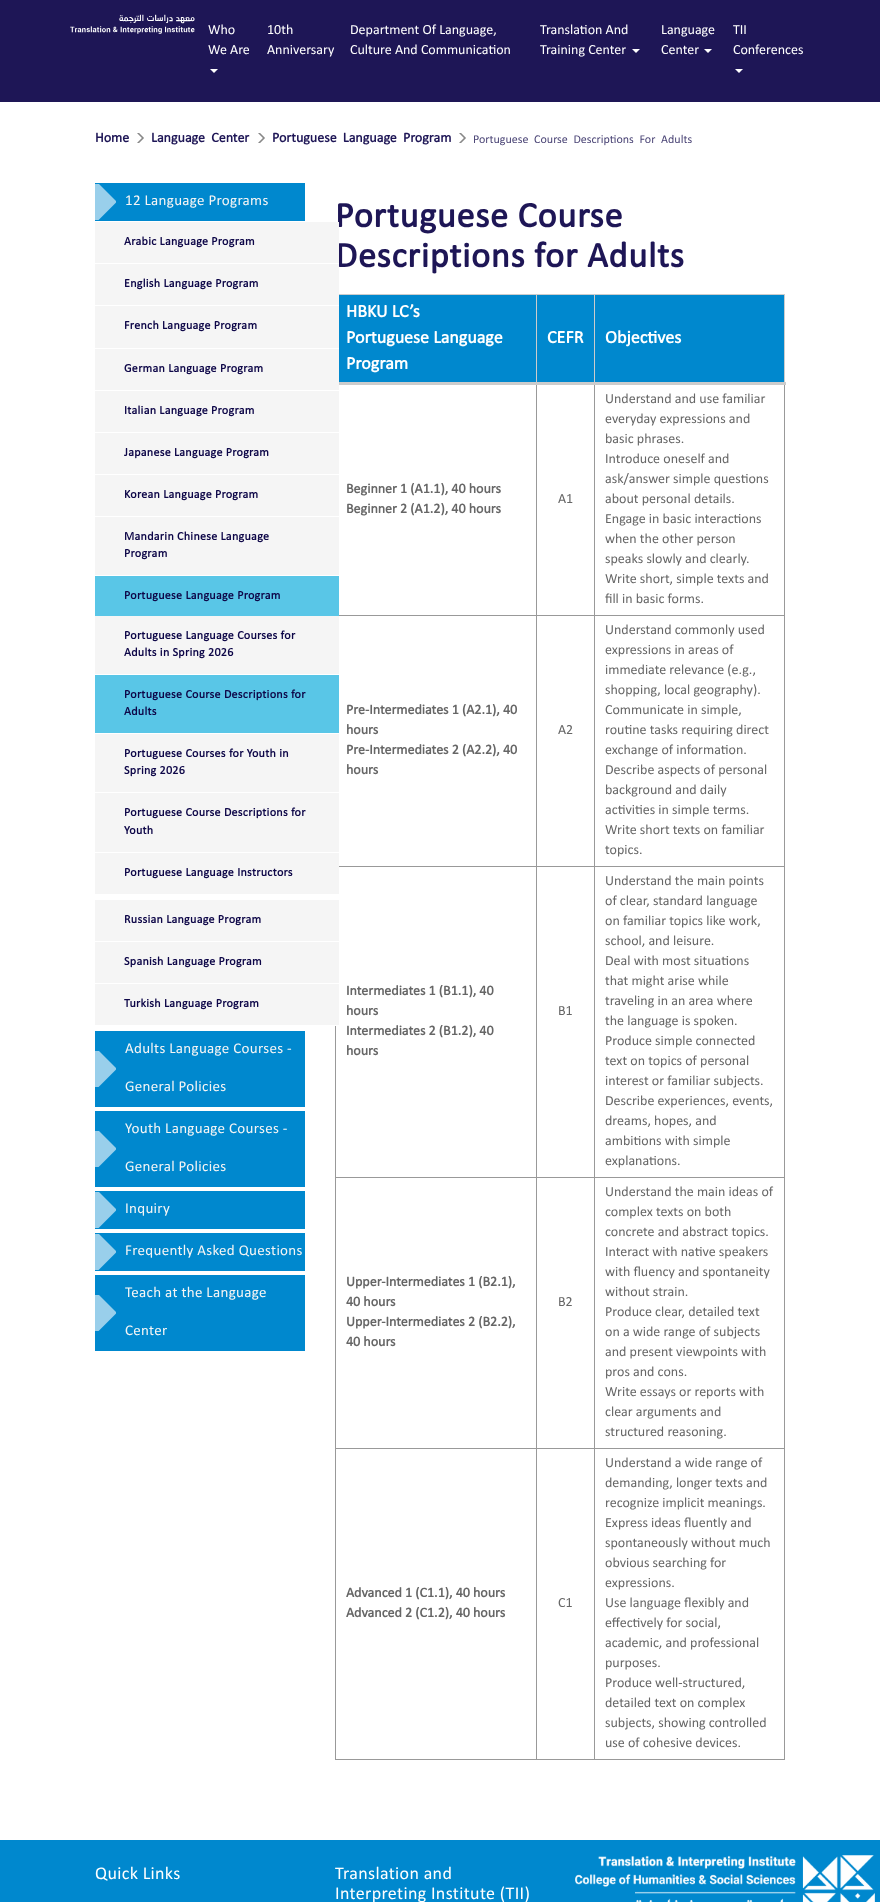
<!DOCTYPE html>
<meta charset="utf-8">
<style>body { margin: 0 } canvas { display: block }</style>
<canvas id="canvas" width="880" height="1902"></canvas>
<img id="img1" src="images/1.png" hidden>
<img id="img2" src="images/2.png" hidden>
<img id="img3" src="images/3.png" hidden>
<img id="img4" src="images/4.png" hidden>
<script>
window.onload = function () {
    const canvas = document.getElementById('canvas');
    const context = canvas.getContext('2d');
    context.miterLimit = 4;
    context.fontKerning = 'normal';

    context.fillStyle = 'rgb(255, 255, 255)';
    context.fillRect(0, 0, 880, 1902);
    context.fillStyle = 'rgb(30, 22, 86)';
    context.fillRect(0, 0, 880, 102);
    context.drawImage(document.getElementById('img1'), 70, 14, 125, 20);
    context.fillStyle = 'rgb(255, 255, 255)';
    context.beginPath();
    context.moveTo(210, 69);
    context.lineTo(218, 69);
    context.lineTo(214, 73);
    context.closePath();
    context.fill();
    context.beginPath();
    context.moveTo(632, 49);
    context.lineTo(640, 49);
    context.lineTo(636, 53);
    context.closePath();
    context.fill();
    context.beginPath();
    context.moveTo(704, 49);
    context.lineTo(712, 49);
    context.lineTo(708, 53);
    context.closePath();
    context.fill();
    context.beginPath();
    context.moveTo(735, 69);
    context.lineTo(743, 69);
    context.lineTo(739, 73);
    context.closePath();
    context.fill();
    context.drawImage(document.getElementById('img2'), 137, 133, 7, 10);
    context.drawImage(document.getElementById('img2'), 258, 133, 7, 10);
    context.drawImage(document.getElementById('img2'), 459, 133, 7, 10);
    context.fillStyle = 'rgb(0, 136, 206)';
    context.fillRect(95, 183, 210, 38);
    context.drawImage(document.getElementById('img3'), 95, 184, 21, 36);
    context.fillStyle = 'rgb(245, 245, 245)';
    context.fillRect(95, 306, 244, 42);
    context.fillStyle = 'rgb(204, 204, 204)';
    context.fillRect(335, 294, 450, 1);
    context.fillStyle = 'rgb(153, 153, 153)';
    context.fillRect(594, 615, 191, 1);
    context.fillRect(594, 866, 191, 1);
    context.fillRect(594, 1177, 191, 1);
    context.fillRect(594, 1448, 191, 1);
    context.fillRect(784, 1448, 1, 312);
    context.fillRect(594, 1759, 191, 1);
    context.fillRect(594, 1448, 1, 312);
    context.fillRect(536, 1448, 59, 1);
    context.fillRect(594, 1177, 1, 272);
    context.fillRect(536, 1177, 59, 1);
    context.fillRect(594, 866, 1, 312);
    context.fillRect(536, 866, 59, 1);
    context.fillRect(594, 615, 1, 252);
    context.fillRect(536, 615, 59, 1);
    context.fillRect(536, 1759, 59, 1);
    context.fillRect(536, 1448, 1, 312);
    context.fillRect(335, 1448, 202, 1);
    context.fillRect(536, 1177, 1, 272);
    context.fillRect(335, 1177, 202, 1);
    context.fillRect(536, 866, 1, 312);
    context.fillRect(335, 866, 202, 1);
    context.fillRect(536, 615, 1, 252);
    context.fillRect(335, 615, 202, 1);
    context.fillRect(536, 383, 1, 233);
    context.fillStyle = 'rgb(204, 204, 204)';
    context.fillRect(536, 294, 1, 90);
    context.fillStyle = 'rgb(153, 153, 153)';
    context.fillRect(784, 1177, 1, 272);
    context.fillRect(784, 866, 1, 312);
    context.fillRect(784, 383, 1, 484);
    context.fillStyle = 'rgb(204, 204, 204)';
    context.fillRect(784, 294, 1, 90);
    context.fillStyle = 'rgb(153, 153, 153)';
    context.fillRect(594, 383, 1, 233);
    context.fillStyle = 'rgb(204, 204, 204)';
    context.fillRect(594, 294, 1, 90);
    context.fillRect(334, 382, 452, 3);
    context.fillStyle = 'rgb(245, 245, 245)';
    context.fillRect(95, 349, 244, 41);
    context.fillRect(95, 391, 244, 41);
    context.fillRect(95, 433, 244, 41);
    context.fillRect(95, 475, 244, 41);
    context.fillRect(95, 517, 244, 58);
    context.fillStyle = 'rgb(89, 198, 231)';
    context.fillRect(95, 576, 244, 40);
    context.fillStyle = 'rgb(245, 245, 245)';
    context.fillRect(95, 616, 244, 58);
    context.fillStyle = 'rgb(89, 198, 231)';
    context.fillRect(95, 675, 244, 58);
    context.fillStyle = 'rgb(245, 245, 245)';
    context.fillRect(95, 734, 244, 58);
    context.fillRect(95, 793, 244, 59);
    context.fillRect(95, 853, 244, 41);
    context.fillRect(95, 900, 244, 41);
    context.fillRect(95, 942, 244, 41);
    context.fillRect(95, 984, 244, 41);
    context.fillStyle = 'rgb(0, 136, 206)';
    context.fillRect(95, 1031, 210, 76);
    context.drawImage(document.getElementById('img3'), 95, 1051, 21, 36);
    context.fillRect(95, 1111, 210, 76);
    context.drawImage(document.getElementById('img3'), 95, 1131, 21, 36);
    context.fillRect(95, 1191, 210, 38);
    context.drawImage(document.getElementById('img3'), 95, 1192, 21, 36);
    context.fillRect(95, 1233, 210, 38);
    context.drawImage(document.getElementById('img3'), 95, 1234, 21, 36);
    context.fillRect(95, 1275, 210, 76);
    context.drawImage(document.getElementById('img3'), 95, 1295, 21, 36);
    context.fillRect(339, 295, 197, 87);
    context.fillRect(537, 295, 57, 87);
    context.fillRect(595, 295, 189, 87);
    context.fillStyle = 'rgb(153, 153, 153)';
    context.fillRect(335, 1759, 202, 1);
    context.fillRect(335, 1448, 1, 312);
    context.fillRect(335, 1026, 1, 423);
    context.fillStyle = 'rgb(0, 136, 206)';
    context.fillRect(0, 1840, 880, 62);
    context.drawImage(document.getElementById('img4'), 575, 1855, 300, 47);
    context.font = '14px Calibri';
    context.fillStyle = 'rgb(255, 255, 255)';
    context.fillText('Who', 208, 34);
    context.fillText('We Are', 208, 54);
    context.fillText('10th', 267, 34);
    context.fillText('Anniversary', 267, 54);
    context.fillText('Department Of Language,', 350, 34);
    context.fillText('Culture And Communication', 350, 54);
    context.fillText('Translation And', 540, 34);
    context.fillText('Training Center', 540, 54);
    context.fillText('Language', 661, 34);
    context.fillText('Center', 661, 54);
    context.fillText('TII', 733, 34);
    context.fillText('Conferences', 733, 54);
    context.font = 'bold 14px Calibri';
    context.fillStyle = 'rgb(30, 22, 86)';
    context.fillText('Home', 95, 142);
    context.wordSpacing = '3px';
    context.fillText('Language Center', 151, 142);
    context.fillText('Portuguese Language Program', 272, 142);
    context.font = '12px Calibri';
    context.fillStyle = 'rgb(75, 69, 118)';
    context.fillText('Portuguese Course Descriptions For Adults', 473, 143);
    context.letterSpacing = '0.3px';
    context.wordSpacing = '0px';
    context.font = '15px Calibri';
    context.fillStyle = 'rgb(245, 245, 245)';
    context.fillText('12 Language Programs', 125, 205);
    context.font = 'bold 12px Calibri';
    context.fillStyle = 'rgb(14, 7, 72)';
    context.fillText('French Language Program', 124, 329);
    context.fillText('German Language Program', 124, 372);
    context.fillText('Italian Language Program', 124, 414);
    context.fillText('Japanese Language Program', 124, 456);
    context.fillText('Korean Language Program', 124, 498);
    context.fillText('Mandarin Chinese Language', 124, 540);
    context.fillText('Program', 124, 557);
    context.fillText('Portuguese Language Program', 124, 599);
    context.fillText('Portuguese Language Courses for', 124, 639);
    context.fillText('Adults in Spring 2026', 124, 656);
    context.fillText('Portuguese Course Descriptions for', 124, 698);
    context.fillText('Adults', 124, 715);
    context.fillText('Portuguese Courses for Youth in', 124, 757);
    context.fillText('Spring 2026', 124, 774);
    context.fillText('Portuguese Course Descriptions for', 124, 816);
    context.fillText('Youth', 124, 834);
    context.fillText('Portuguese Language Instructors', 124, 876);
    context.fillText('Russian Language Program', 124, 923);
    context.fillText('Spanish Language Program', 124, 965);
    context.fillText('Turkish Language Program', 124, 1007);
    context.font = '15px Calibri';
    context.fillStyle = 'rgb(245, 245, 245)';
    context.fillText('Adults Language Courses -', 125, 1053);
    context.fillText('General Policies', 125, 1091);
    context.fillText('Youth Language Courses -', 125, 1133);
    context.fillText('General Policies', 125, 1171);
    context.fillText('Inquiry', 125, 1213);
    context.fillText('Frequently Asked Questions', 125, 1255);
    context.fillText('Teach at the Language', 125, 1297);
    context.fillText('Center', 125, 1335);
    context.letterSpacing = '0.75px';
    context.font = 'bold 36px Calibri';
    context.fillStyle = 'rgb(30, 22, 86)';
    context.fillText('Portuguese Course', 335, 227);
    context.fillText('Descriptions for Adults', 335, 267);
    context.fillStyle = 'rgb(245, 245, 245)';
    context.fillRect(95, 264, 244, 41);
    context.letterSpacing = '0.3px';
    context.font = 'bold 12px Calibri';
    context.fillStyle = 'rgb(14, 7, 72)';
    context.fillText('English Language Program', 124, 287);
    context.fillStyle = 'rgb(245, 245, 245)';
    context.fillRect(95, 222, 244, 41);
    context.fillStyle = 'rgb(14, 7, 72)';
    context.fillText('Arabic Language Program', 124, 245);
    context.fillStyle = 'rgb(255, 255, 255)';
    context.fillRect(338, 263, 1, 1);
    context.letterSpacing = '0px';
    context.font = 'bold 18px Calibri';
    context.fillText('HBKU LC’s', 346, 317);
    context.fillText('Portuguese Language', 346, 343);
    context.fillText('Program', 346, 369);
    context.fillText('CEFR', 547, 343);
    context.fillText('Objectives', 605, 343);
    context.font = 'bold 14px Calibri';
    context.fillStyle = 'rgb(102, 102, 102)';
    context.fillText('Beginner 1 (A1.1), 40 hours', 346, 493);
    context.fillText('Beginner 2 (A1.2), 40 hours', 346, 513);
    context.font = '14px Calibri';
    context.fillText('A1', 558, 503);
    context.fillText('Understand and use familiar', 605, 403);
    context.fillText('everyday expressions and', 605, 423);
    context.fillText('basic phrases.', 605, 443);
    context.fillText('Introduce oneself and', 605, 463);
    context.fillText('ask/answer simple questions', 605, 483);
    context.fillText('about personal details.', 605, 503);
    context.fillText('Engage in basic interactions', 605, 523);
    context.fillText('when the other person', 605, 543);
    context.fillText('speaks slowly and clearly.', 605, 563);
    context.fillText('Write short, simple texts and', 605, 583);
    context.fillText('fill in basic forms.', 605, 603);
    context.font = 'bold 14px Calibri';
    context.fillText('Pre-Intermediates 1 (A2.1), 40', 346, 714);
    context.fillText('hours', 346, 734);
    context.fillText('Pre-Intermediates 2 (A2.2), 40', 346, 754);
    context.fillText('hours', 346, 774);
    context.font = '14px Calibri';
    context.fillText('A2', 558, 734);
    context.fillText('Understand commonly used', 605, 634);
    context.fillText('expressions in areas of', 605, 654);
    context.fillText('immediate relevance (e.g.,', 605, 674);
    context.fillText('shopping, local geography).', 605, 694);
    context.fillText('Communicate in simple,', 605, 714);
    context.fillText('routine tasks requiring direct', 605, 734);
    context.fillText('exchange of information.', 605, 754);
    context.fillText('Describe aspects of personal', 605, 774);
    context.fillText('background and daily', 605, 794);
    context.fillText('activities in simple terms.', 605, 814);
    context.fillText('Write short texts on familiar', 605, 834);
    context.fillText('topics.', 605, 854);
    context.font = 'bold 14px Calibri';
    context.fillText('Intermediates 1 (B1.1), 40', 346, 995);
    context.fillText('hours', 346, 1015);
    context.fillText('Intermediates 2 (B1.2), 40', 346, 1035);
    context.fillText('hours', 346, 1055);
    context.font = '14px Calibri';
    context.fillText('B1', 558, 1015);
    context.fillText('Understand the main points', 605, 885);
    context.fillText('of clear, standard language', 605, 905);
    context.fillText('on familiar topics like work,', 605, 925);
    context.fillText('school, and leisure.', 605, 945);
    context.fillText('Deal with most situations', 605, 965);
    context.fillText('that might arise while', 605, 985);
    context.fillText('traveling in an area where', 605, 1005);
    context.fillText('the language is spoken.', 605, 1025);
    context.fillText('Produce simple connected', 605, 1045);
    context.fillText('text on topics of personal', 605, 1065);
    context.fillText('interest or familiar subjects.', 605, 1085);
    context.fillText('Describe experiences, events,', 605, 1105);
    context.fillText('dreams, hopes, and', 605, 1125);
    context.fillText('ambitions with simple', 605, 1145);
    context.fillText('explanations.', 605, 1165);
    context.font = 'bold 14px Calibri';
    context.fillText('Upper-Intermediates 1 (B2.1),', 346, 1286);
    context.fillText('40 hours', 346, 1306);
    context.fillText('Upper-Intermediates 2 (B2.2),', 346, 1326);
    context.fillText('40 hours', 346, 1346);
    context.font = '14px Calibri';
    context.fillText('B2', 558, 1306);
    context.fillText('Understand the main ideas of', 605, 1196);
    context.fillText('complex texts on both', 605, 1216);
    context.fillText('concrete and abstract topics.', 605, 1236);
    context.fillText('Interact with native speakers', 605, 1256);
    context.fillText('with fluency and spontaneity', 605, 1276);
    context.fillText('without strain.', 605, 1296);
    context.fillText('Produce clear, detailed text', 605, 1316);
    context.fillText('on a wide range of subjects', 605, 1336);
    context.fillText('and present viewpoints with', 605, 1356);
    context.fillText('pros and cons.', 605, 1376);
    context.fillText('Write essays or reports with', 605, 1396);
    context.fillText('clear arguments and', 605, 1416);
    context.fillText('structured reasoning.', 605, 1436);
    context.font = 'bold 14px Calibri';
    context.fillText('Advanced 1 (C1.1), 40 hours', 346, 1597);
    context.fillText('Advanced 2 (C1.2), 40 hours', 346, 1617);
    context.font = '14px Calibri';
    context.fillText('C1', 558, 1607);
    context.fillText('Understand a wide range of', 605, 1467);
    context.fillText('demanding, longer texts and', 605, 1487);
    context.fillText('recognize implicit meanings.', 605, 1507);
    context.fillText('Express ideas fluently and', 605, 1527);
    context.fillText('spontaneously without much', 605, 1547);
    context.fillText('obvious searching for', 605, 1567);
    context.fillText('expressions.', 605, 1587);
    context.fillText('Use language flexibly and', 605, 1607);
    context.fillText('effectively for social,', 605, 1627);
    context.fillText('academic, and professional', 605, 1647);
    context.fillText('purposes.', 605, 1667);
    context.fillText('Produce well-structured,', 605, 1687);
    context.fillText('detailed text on complex', 605, 1707);
    context.fillText('subjects, showing controlled', 605, 1727);
    context.fillText('use of cohesive devices.', 605, 1747);
    context.letterSpacing = '0.35px';
    context.font = '18px Calibri';
    context.fillStyle = 'rgb(255, 255, 255)';
    context.fillText('Quick Links', 95, 1879);
    context.fillText('Translation and', 335, 1879);
    context.fillText('Interpreting Institute (TII)', 335, 1899);
};
</script>
